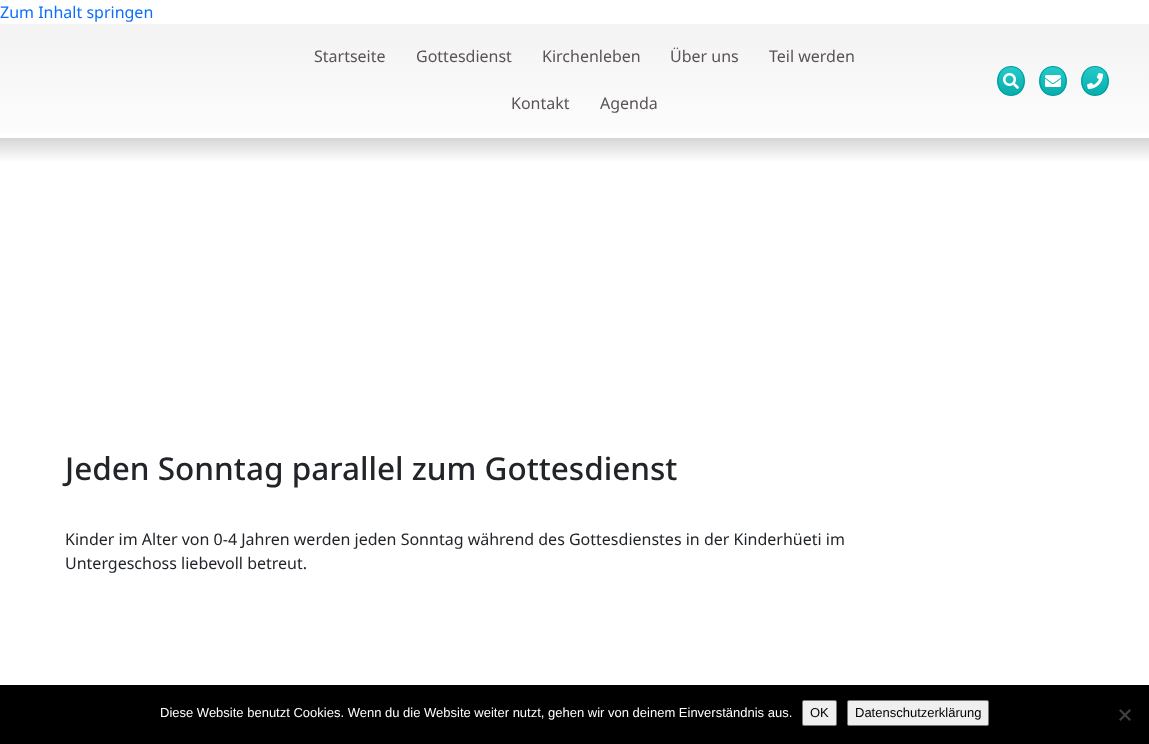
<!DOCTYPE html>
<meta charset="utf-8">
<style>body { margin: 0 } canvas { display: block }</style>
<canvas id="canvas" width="1149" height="744"></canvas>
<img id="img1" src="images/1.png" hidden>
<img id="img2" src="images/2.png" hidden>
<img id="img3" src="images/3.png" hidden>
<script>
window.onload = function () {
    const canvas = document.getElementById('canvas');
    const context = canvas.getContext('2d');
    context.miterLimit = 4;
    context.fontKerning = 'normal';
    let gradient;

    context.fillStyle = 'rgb(255, 255, 255)';
    context.fillRect(0, 0, 1149, 744);
    context.fillStyle = 'rgb(214, 212, 212)';
    context.fillRect(0, 138, 1149, 1);
    gradient = context.createLinearGradient(575, 24, 575, 369);
    gradient.addColorStop(0, 'rgb(243, 243, 243)');
    gradient.addColorStop(0.4, 'rgb(255, 255, 255)');
    context.fillStyle = gradient;
    context.fillRect(0, 24, 1149, 109);
    gradient = context.createLinearGradient(1011, 67, 1011, 95);
    gradient.addColorStop(0, 'rgb(37, 203, 202)');
    gradient.addColorStop(1, 'rgb(7, 173, 172)');
    context.fillStyle = gradient;
    context.beginPath();
    context.moveTo(1006, 95);
    context.bezierCurveTo(1000.5, 93, 997, 87.5, 997, 81);
    context.bezierCurveTo(997, 74.5, 1000.5, 69, 1006, 67);
    context.lineTo(1016, 67);
    context.bezierCurveTo(1021.5, 69, 1025, 74.5, 1025, 81);
    context.bezierCurveTo(1025, 87.5, 1021.5, 93, 1016, 95);
    context.closePath();
    context.fill();
    context.beginPath();
    context.moveTo(1011, 66.5);
    context.bezierCurveTo(1028.5, 66.5, 1028.5, 95.5, 1011, 95.5);
    context.bezierCurveTo(993.5, 95.5, 993.5, 66.5, 1011, 66.5);
    context.closePath();
    context.strokeStyle = 'rgb(0, 153, 152)';
    context.stroke();
    context.drawImage(document.getElementById('img1'), 1003, 73, 16, 16);
    gradient = context.createLinearGradient(1053, 67, 1053, 95);
    gradient.addColorStop(0, 'rgb(37, 203, 202)');
    gradient.addColorStop(1, 'rgb(7, 173, 172)');
    context.fillStyle = gradient;
    context.beginPath();
    context.moveTo(1048, 95);
    context.bezierCurveTo(1042.5, 93, 1039, 87.5, 1039, 81);
    context.bezierCurveTo(1039, 74.5, 1042.5, 69, 1048, 67);
    context.lineTo(1058, 67);
    context.bezierCurveTo(1063.5, 69, 1067, 74.5, 1067, 81);
    context.bezierCurveTo(1067, 87.5, 1063.5, 93, 1058, 95);
    context.closePath();
    context.fill();
    context.beginPath();
    context.moveTo(1053, 66.5);
    context.bezierCurveTo(1070.5, 66.5, 1070.5, 95.5, 1053, 95.5);
    context.bezierCurveTo(1035.5, 95.5, 1035.5, 66.5, 1053, 66.5);
    context.closePath();
    context.stroke();
    context.drawImage(document.getElementById('img2'), 1045, 75, 16, 12);
    gradient = context.createLinearGradient(1095, 67, 1095, 95);
    gradient.addColorStop(0, 'rgb(37, 203, 202)');
    gradient.addColorStop(1, 'rgb(7, 173, 172)');
    context.fillStyle = gradient;
    context.beginPath();
    context.moveTo(1090, 95);
    context.bezierCurveTo(1084.5, 93, 1081, 87.5, 1081, 81);
    context.bezierCurveTo(1081, 74.5, 1084.5, 69, 1090, 67);
    context.lineTo(1100, 67);
    context.bezierCurveTo(1105.5, 69, 1109, 74.5, 1109, 81);
    context.bezierCurveTo(1109, 87.5, 1105.5, 93, 1100, 95);
    context.closePath();
    context.fill();
    context.beginPath();
    context.moveTo(1095, 66.5);
    context.bezierCurveTo(1112.5, 66.5, 1112.5, 95.5, 1095, 95.5);
    context.bezierCurveTo(1077.5, 95.5, 1077.5, 66.5, 1095, 66.5);
    context.closePath();
    context.stroke();
    context.drawImage(document.getElementById('img3'), 1087, 73, 16, 16);
    gradient = context.createLinearGradient(575, 24, 575, 369);
    gradient.addColorStop(0, 'rgb(10, 16, 13)');
    gradient.addColorStop(0.4, 'rgb(255, 255, 255)');
    context.fillStyle = gradient;
    context.fillRect(0, 139, 1149, 22);
    context.fillStyle = 'rgb(0, 0, 0)';
    context.fillRect(0, 685, 1149, 59);
    context.fillStyle = 'rgb(239, 239, 239)';
    context.beginPath();
    context.roundRect(802.5, 700.5, 34, 25, 1.5);
    context.fill();
    context.strokeStyle = 'rgb(118, 118, 118)';
    context.stroke();
    context.beginPath();
    context.roundRect(847.5, 700.5, 141, 25, 1.5);
    context.fill();
    context.stroke();
    context.fillStyle = 'rgb(64, 64, 64)';
    context.beginPath();
    context.moveTo(1129.5, 709);
    context.lineTo(1131, 710.5);
    context.lineTo(1120.5, 721);
    context.lineTo(1119, 719.5);
    context.closePath();
    context.fill();
    context.beginPath();
    context.moveTo(1119, 710.5);
    context.lineTo(1120.5, 709);
    context.lineTo(1131, 719.5);
    context.lineTo(1129.5, 721);
    context.closePath();
    context.fill();
    context.font = '16px Noto Sans';
    context.fillStyle = 'rgb(13, 110, 253)';
    context.fillText('Zum Inhalt springen', 0, 18);
    context.fillStyle = 'rgb(91, 83, 83)';
    context.fillText('Startseite', 314, 62);
    context.fillText('Gottesdienst', 416, 62);
    context.fillText('Kirchenleben', 542, 62);
    context.fillText('Über uns', 670, 62);
    context.fillText('Teil werden', 769, 62);
    context.fillText('Kontakt', 511, 109);
    context.fillText('Agenda', 600, 109);
    context.font = '500 31.5px Noto Sans';
    context.fillStyle = 'rgb(33, 37, 41)';
    context.fillText('Jeden Sonntag parallel zum Gottesdienst', 65, 480);
    context.font = '16px Noto Sans';
    context.fillText('Kinder im Alter von 0-4 Jahren werden jeden Sonntag während des Gottesdienstes in der Kinderhüeti im', 65, 545);
    context.fillText('Untergeschoss liebevoll betreut.', 65, 569);
    context.font = '13px Liberation Sans';
    context.fillStyle = 'rgb(255, 255, 255)';
    context.fillText('Diese Website benutzt Cookies. Wenn du die Website weiter nutzt, gehen wir von deinem Einverständnis aus.', 160, 717);
    context.fillStyle = 'rgb(0, 0, 0)';
    context.fillText('OK', 810, 717);
    context.fillText('Datenschutzerklärung', 855, 717);
};
</script>
